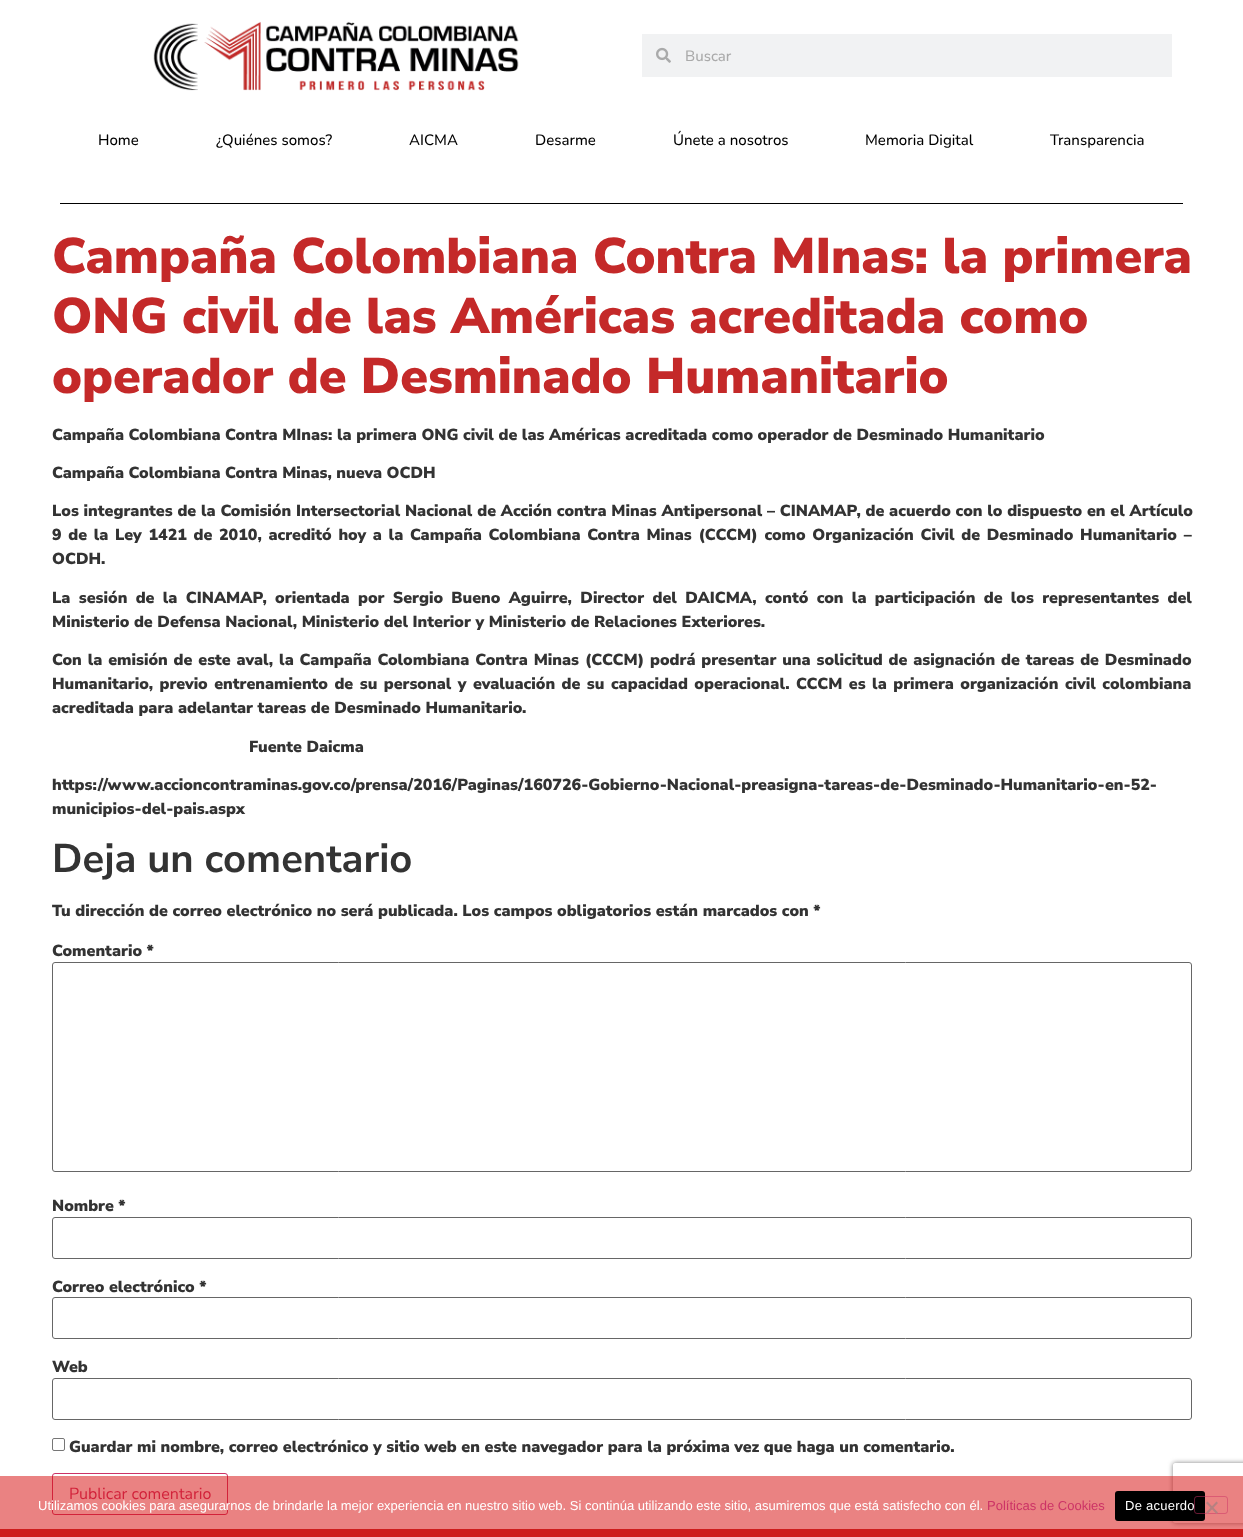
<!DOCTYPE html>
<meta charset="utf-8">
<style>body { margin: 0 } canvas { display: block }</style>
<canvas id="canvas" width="1243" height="1537"></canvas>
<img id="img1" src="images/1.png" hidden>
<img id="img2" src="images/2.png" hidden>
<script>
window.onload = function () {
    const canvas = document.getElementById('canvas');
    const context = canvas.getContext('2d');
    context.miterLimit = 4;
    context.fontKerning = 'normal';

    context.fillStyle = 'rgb(255, 255, 255)';
    context.fillRect(0, 0, 1243, 1537);
    context.drawImage(document.getElementById('img1'), 153, 21, 366, 70);
    context.fillStyle = 'rgb(241, 242, 243)';
    context.fillRect(642, 34, 530, 43);
    context.drawImage(document.getElementById('img2'), 656, 47, 15, 16);
    context.fillStyle = 'rgb(0, 0, 0)';
    context.fillRect(60, 203, 1123, 1);
    context.beginPath();
    context.roundRect(52.5, 962.5, 1139, 209, 2.5);
    context.strokeStyle = 'rgb(102, 102, 102)';
    context.stroke();
    context.beginPath();
    context.roundRect(52.5, 1217.5, 1139, 41, 2.5);
    context.stroke();
    context.beginPath();
    context.roundRect(52.5, 1297.5, 1139, 41, 2.5);
    context.stroke();
    context.beginPath();
    context.roundRect(52.5, 1378.5, 1139, 41, 2.5);
    context.stroke();
    context.beginPath();
    context.roundRect(52.5, 1438.5, 12, 12, 1.5);
    context.strokeStyle = 'rgb(118, 118, 118)';
    context.stroke();
    context.beginPath();
    context.roundRect(52.5, 1473.5, 175, 41, 2.5);
    context.strokeStyle = 'rgb(204, 51, 102)';
    context.stroke();
    context.fillStyle = 'rgb(196, 41, 41)';
    context.fillRect(0, 1529, 1243, 8);
    context.save();
    context.beginPath();
    context.moveTo(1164, 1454);
    context.lineTo(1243, 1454);
    context.lineTo(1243, 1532);
    context.lineTo(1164, 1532);
    context.closePath();
    context.moveTo(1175, 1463);
    context.lineTo(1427, 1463);
    context.bezierCurveTo(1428, 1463, 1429, 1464, 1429, 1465);
    context.lineTo(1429, 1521);
    context.bezierCurveTo(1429, 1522, 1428, 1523, 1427, 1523);
    context.lineTo(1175, 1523);
    context.bezierCurveTo(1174, 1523, 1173, 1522, 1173, 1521);
    context.lineTo(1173, 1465);
    context.bezierCurveTo(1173, 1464, 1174, 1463, 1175, 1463);
    context.closePath();
    context.clip('evenodd');
    context.fillStyle = 'rgb(128, 128, 128)';
    context.filter = 'blur(2.5px)';
    context.beginPath();
    context.roundRect(1173, 1463, 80, 60, 2);
    context.fill();
    context.filter = 'none';
    context.restore();
    context.font = '500 15px Nunito Sans';
    context.fillStyle = 'rgb(170, 170, 170)';
    context.fillText('Buscar', 685, 61);
    context.font = '500 15px Nunito';
    context.fillStyle = 'rgb(0, 0, 0)';
    context.fillText('Home', 98, 145);
    context.fillText('¿Quiénes somos?', 216, 145);
    context.fillText('AICMA', 409, 145);
    context.fillText('Desarme', 535, 145);
    context.fillText('Únete a nosotros', 673, 145);
    context.fillText('Memoria Digital', 865, 145);
    context.fillText('Transparencia', 1050, 145);
    context.font = '900 50px Nunito Sans';
    context.fillStyle = 'rgb(196, 41, 41)';
    context.fillText('Campaña Colombiana Contra MInas: la primera', 52, 273);
    context.fillText('ONG civil de las Américas acreditada como', 52, 333);
    context.fillText('operador de Desminado Humanitario', 52, 393);
    context.font = '900 16px Nunito Sans';
    context.fillStyle = 'rgb(51, 51, 51)';
    context.fillText('Campaña Colombiana Contra MInas: la primera ONG civil de las Américas acreditada como operador de Desminado Humanitario', 52, 440);
    context.fillText('Campaña Colombiana Contra Minas, nueva OCDH', 52, 478);
    context.wordSpacing = '0.2px';
    context.fillText('Los integrantes de la Comisión Intersectorial Nacional de Acción contra Minas Antipersonal – CINAMAP, de acuerdo con lo dispuesto en el Artículo', 52, 516);
    context.wordSpacing = '2.1px';
    context.fillText('9 de la Ley 1421 de 2010, acreditó hoy a la Campaña Colombiana Contra Minas (CCCM) como Organización Civil de Desminado Humanitario –', 52, 540);
    context.wordSpacing = '0px';
    context.fillText('OCDH.', 52, 564);
    context.wordSpacing = '3.75px';
    context.fillText('La sesión de la CINAMAP, orientada por Sergio Bueno Aguirre, Director del DAICMA, contó con la participación de los representantes del', 52, 603);
    context.wordSpacing = '0px';
    context.fillText('Ministerio de Defensa Nacional, Ministerio del Interior y Ministerio de Relaciones Exteriores.', 52, 627);
    context.wordSpacing = '1.3px';
    context.fillText('Con la emisión de este aval, la Campaña Colombiana Contra Minas (CCCM) podrá presentar una solicitud de asignación de tareas de Desminado', 52, 665);
    context.wordSpacing = '1.9px';
    context.fillText('Humanitario, previo entrenamiento de su personal y evaluación de su capacidad operacional. CCCM es la primera organización civil colombiana', 52, 689);
    context.wordSpacing = '0px';
    context.fillText('acreditada para adelantar tareas de Desminado Humanitario.', 52, 713);
    context.fillText('Fuente Daicma', 249, 752);
    context.fillText('https://www.accioncontraminas.gov.co/prensa/2016/Paginas/160726-Gobierno-Nacional-preasigna-tareas-de-Desminado-Humanitario-en-52-', 52, 790);
    context.fillText('municipios-del-pais.aspx', 52, 814);
    context.font = 'bold 40px Nunito Sans';
    context.fillText('Deja un comentario', 52, 872);
    context.font = '900 16px Nunito Sans';
    context.fillText('Tu dirección de correo electrónico no será publicada. Los campos obligatorios están marcados con *', 52, 916);
    context.fillText('Comentario *', 52, 956);
    context.fillText('Nombre *', 52, 1211);
    context.fillText('Correo electrónico *', 52, 1292);
    context.fillText('Web', 52, 1372);
    context.fillText('Guardar mi nombre, correo electrónico y sitio web en este navegador para la próxima vez que haga un comentario.', 69, 1452);
    context.font = '16px Nunito Sans';
    context.fillStyle = 'rgb(204, 51, 102)';
    context.fillText('Publicar comentario', 69, 1499);
    context.fillStyle = 'rgba(216, 19, 19, 0.53)';
    context.fillRect(0, 1476, 1243, 61);
    context.font = '13px Liberation Sans';
    context.fillStyle = 'rgb(255, 255, 255)';
    context.fillText('Utilizamos cookies para asegurarnos de brindarle la mejor experiencia en nuestro sitio web. Si continúa utilizando este sitio, asumiremos que está satisfecho con él.', 38, 1510);
    context.fillStyle = 'rgb(204, 51, 102)';
    context.fillText('Políticas de Cookies', 987, 1510);
    context.fillStyle = 'rgb(0, 0, 0)';
    context.beginPath();
    context.roundRect(1115, 1491, 90, 30, 3);
    context.fill();
    context.letterSpacing = '0.25px';
    context.fillStyle = 'rgb(255, 255, 255)';
    context.fillText('De acuerdo', 1125, 1510);
    context.beginPath();
    context.roundRect(1194.5, 1496.5, 33, 17, 2.5);
    context.strokeStyle = 'rgba(204, 51, 102, 0.5)';
    context.stroke();
    context.fillStyle = 'rgb(181, 129, 129)';
    context.beginPath();
    context.moveTo(1216.5, 1501.5);
    context.lineTo(1218, 1503);
    context.lineTo(1207.5, 1514);
    context.lineTo(1206, 1512.5);
    context.closePath();
    context.fill();
    context.beginPath();
    context.moveTo(1206, 1503);
    context.lineTo(1207.5, 1501.5);
    context.lineTo(1218, 1512.5);
    context.lineTo(1216.5, 1514);
    context.closePath();
    context.fill();
};
</script>
